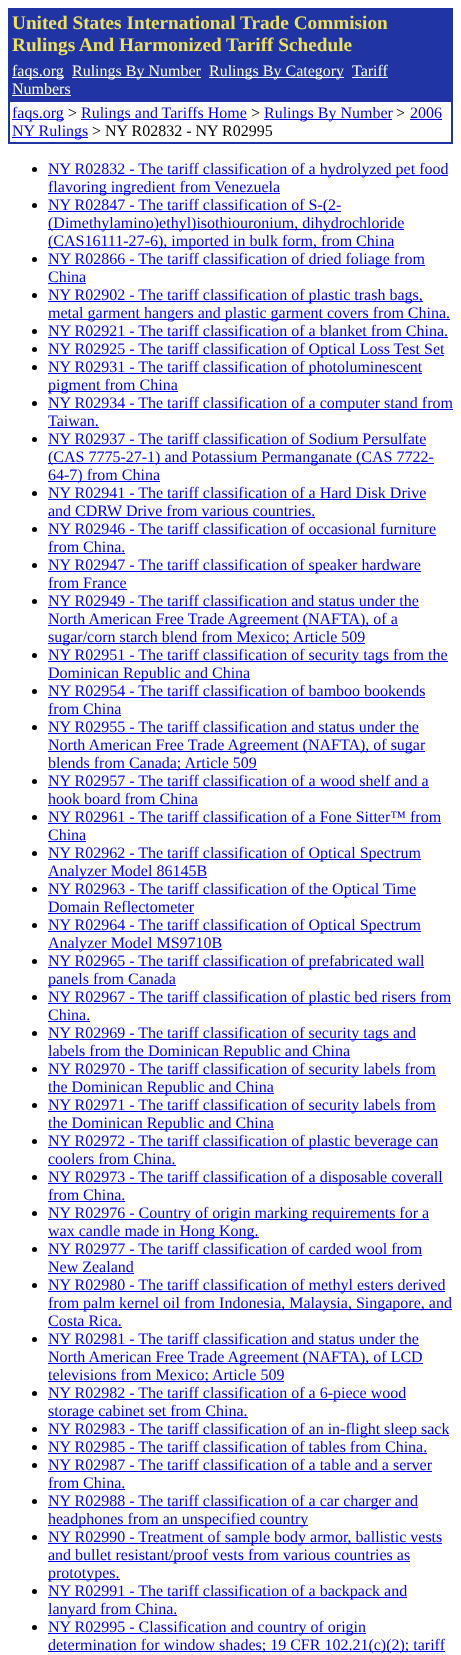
<!DOCTYPE html>
<meta charset="utf-8">
<style>body { margin: 0 } canvas { display: block }</style>
<canvas id="canvas" width="461" height="1655"></canvas>
<script>
window.onload = function () {
    const canvas = document.getElementById('canvas');
    const context = canvas.getContext('2d');
    context.miterLimit = 4;
    context.fontKerning = 'normal';

    context.fillStyle = 'rgb(255, 255, 255)';
    context.fillRect(0, 0, 461, 1655);
    context.fillStyle = 'rgb(33, 52, 163)';
    context.fillRect(8, 8, 445, 136);
    context.fillStyle = 'rgb(255, 255, 255)';
    context.fillRect(12, 77, 52, 1);
    context.fillRect(72, 77, 129, 1);
    context.fillRect(209, 77, 135, 1);
    context.fillRect(352, 77, 36, 1);
    context.fillRect(12, 95, 59, 1);
    context.fillRect(10, 102, 441, 40);
    context.fillStyle = 'rgb(0, 0, 238)';
    context.fillRect(12, 119, 52, 1);
    context.fillRect(81, 119, 166, 1);
    context.fillRect(264, 119, 128, 1);
    context.fillRect(410, 119, 32, 1);
    context.fillRect(12, 137, 76, 1);
    context.fillStyle = 'rgb(0, 0, 0)';
    context.beginPath();
    context.arc(34.5, 169.5, 2.5, 0, 2 * Math.PI);
    context.fill();
    context.fillStyle = 'rgb(0, 0, 238)';
    context.fillRect(48, 175, 400, 1);
    context.fillRect(48, 193, 232, 1);
    context.fillStyle = 'rgb(0, 0, 0)';
    context.beginPath();
    context.arc(34.5, 205.5, 2.5, 0, 2 * Math.PI);
    context.fill();
    context.fillStyle = 'rgb(0, 0, 238)';
    context.fillRect(48, 211, 293, 1);
    context.fillRect(48, 229, 356, 1);
    context.fillRect(48, 247, 346, 1);
    context.fillStyle = 'rgb(0, 0, 0)';
    context.beginPath();
    context.arc(34.5, 259.5, 2.5, 0, 2 * Math.PI);
    context.fill();
    context.fillStyle = 'rgb(0, 0, 238)';
    context.fillRect(48, 265, 377, 1);
    context.fillRect(48, 283, 38, 1);
    context.fillStyle = 'rgb(0, 0, 0)';
    context.beginPath();
    context.arc(34.5, 295.5, 2.5, 0, 2 * Math.PI);
    context.fill();
    context.fillStyle = 'rgb(0, 0, 238)';
    context.fillRect(48, 301, 375, 1);
    context.fillRect(48, 319, 402, 1);
    context.fillStyle = 'rgb(0, 0, 0)';
    context.beginPath();
    context.arc(34.5, 331.5, 2.5, 0, 2 * Math.PI);
    context.fill();
    context.fillStyle = 'rgb(0, 0, 238)';
    context.fillRect(48, 337, 400, 1);
    context.fillStyle = 'rgb(0, 0, 0)';
    context.beginPath();
    context.arc(34.5, 349.5, 2.5, 0, 2 * Math.PI);
    context.fill();
    context.fillStyle = 'rgb(0, 0, 238)';
    context.fillRect(48, 355, 396, 1);
    context.fillStyle = 'rgb(0, 0, 0)';
    context.beginPath();
    context.arc(34.5, 367.5, 2.5, 0, 2 * Math.PI);
    context.fill();
    context.fillStyle = 'rgb(0, 0, 238)';
    context.fillRect(48, 373, 374, 1);
    context.fillRect(48, 391, 130, 1);
    context.fillStyle = 'rgb(0, 0, 0)';
    context.beginPath();
    context.arc(34.5, 403.5, 2.5, 0, 2 * Math.PI);
    context.fill();
    context.fillStyle = 'rgb(0, 0, 238)';
    context.fillRect(48, 409, 405, 1);
    context.fillRect(48, 427, 51, 1);
    context.fillStyle = 'rgb(0, 0, 0)';
    context.beginPath();
    context.arc(34.5, 439.5, 2.5, 0, 2 * Math.PI);
    context.fill();
    context.fillStyle = 'rgb(0, 0, 238)';
    context.fillRect(48, 445, 378, 1);
    context.fillRect(48, 463, 386, 1);
    context.fillRect(48, 481, 112, 1);
    context.fillStyle = 'rgb(0, 0, 0)';
    context.beginPath();
    context.arc(34.5, 493.5, 2.5, 0, 2 * Math.PI);
    context.fill();
    context.fillStyle = 'rgb(0, 0, 238)';
    context.fillRect(48, 499, 378, 1);
    context.fillRect(48, 517, 267, 1);
    context.fillStyle = 'rgb(0, 0, 0)';
    context.beginPath();
    context.arc(34.5, 529.5, 2.5, 0, 2 * Math.PI);
    context.fill();
    context.fillStyle = 'rgb(0, 0, 238)';
    context.fillRect(48, 535, 388, 1);
    context.fillRect(48, 553, 77, 1);
    context.fillStyle = 'rgb(0, 0, 0)';
    context.beginPath();
    context.arc(34.5, 565.5, 2.5, 0, 2 * Math.PI);
    context.fill();
    context.fillStyle = 'rgb(0, 0, 238)';
    context.fillRect(48, 571, 373, 1);
    context.fillRect(48, 589, 79, 1);
    context.fillStyle = 'rgb(0, 0, 0)';
    context.beginPath();
    context.arc(34.5, 601.5, 2.5, 0, 2 * Math.PI);
    context.fill();
    context.fillStyle = 'rgb(0, 0, 238)';
    context.fillRect(48, 607, 371, 1);
    context.fillRect(48, 625, 350, 1);
    context.fillRect(48, 643, 317, 1);
    context.fillStyle = 'rgb(0, 0, 0)';
    context.beginPath();
    context.arc(34.5, 655.5, 2.5, 0, 2 * Math.PI);
    context.fill();
    context.fillStyle = 'rgb(0, 0, 238)';
    context.fillRect(48, 661, 400, 1);
    context.fillRect(48, 679, 202, 1);
    context.fillStyle = 'rgb(0, 0, 0)';
    context.beginPath();
    context.arc(34.5, 691.5, 2.5, 0, 2 * Math.PI);
    context.fill();
    context.fillStyle = 'rgb(0, 0, 238)';
    context.fillRect(48, 697, 377, 1);
    context.fillRect(48, 715, 73, 1);
    context.fillStyle = 'rgb(0, 0, 0)';
    context.beginPath();
    context.arc(34.5, 727.5, 2.5, 0, 2 * Math.PI);
    context.fill();
    context.fillStyle = 'rgb(0, 0, 238)';
    context.fillRect(48, 733, 371, 1);
    context.fillRect(48, 751, 377, 1);
    context.fillRect(48, 769, 209, 1);
    context.fillStyle = 'rgb(0, 0, 0)';
    context.beginPath();
    context.arc(34.5, 781.5, 2.5, 0, 2 * Math.PI);
    context.fill();
    context.fillStyle = 'rgb(0, 0, 238)';
    context.fillRect(48, 787, 381, 1);
    context.fillRect(48, 805, 150, 1);
    context.fillStyle = 'rgb(0, 0, 0)';
    context.beginPath();
    context.arc(34.5, 817.5, 2.5, 0, 2 * Math.PI);
    context.fill();
    context.fillStyle = 'rgb(0, 0, 238)';
    context.fillRect(48, 823, 393, 1);
    context.fillRect(48, 841, 38, 1);
    context.fillStyle = 'rgb(0, 0, 0)';
    context.beginPath();
    context.arc(34.5, 853.5, 2.5, 0, 2 * Math.PI);
    context.fill();
    context.fillStyle = 'rgb(0, 0, 238)';
    context.fillRect(48, 859, 373, 1);
    context.fillRect(48, 877, 159, 1);
    context.fillStyle = 'rgb(0, 0, 0)';
    context.beginPath();
    context.arc(34.5, 889.5, 2.5, 0, 2 * Math.PI);
    context.fill();
    context.fillStyle = 'rgb(0, 0, 238)';
    context.fillRect(48, 895, 368, 1);
    context.fillRect(48, 913, 146, 1);
    context.fillStyle = 'rgb(0, 0, 0)';
    context.beginPath();
    context.arc(34.5, 925.5, 2.5, 0, 2 * Math.PI);
    context.fill();
    context.fillStyle = 'rgb(0, 0, 238)';
    context.fillRect(48, 931, 373, 1);
    context.fillRect(48, 949, 174, 1);
    context.fillStyle = 'rgb(0, 0, 0)';
    context.beginPath();
    context.arc(34.5, 961.5, 2.5, 0, 2 * Math.PI);
    context.fill();
    context.fillStyle = 'rgb(0, 0, 238)';
    context.fillRect(48, 967, 376, 1);
    context.fillRect(48, 985, 128, 1);
    context.fillStyle = 'rgb(0, 0, 0)';
    context.beginPath();
    context.arc(34.5, 997.5, 2.5, 0, 2 * Math.PI);
    context.fill();
    context.fillStyle = 'rgb(0, 0, 238)';
    context.fillRect(48, 1003, 403, 1);
    context.fillRect(48, 1021, 42, 1);
    context.fillStyle = 'rgb(0, 0, 0)';
    context.beginPath();
    context.arc(34.5, 1033.5, 2.5, 0, 2 * Math.PI);
    context.fill();
    context.fillStyle = 'rgb(0, 0, 238)';
    context.fillRect(48, 1039, 368, 1);
    context.fillRect(48, 1057, 302, 1);
    context.fillStyle = 'rgb(0, 0, 0)';
    context.beginPath();
    context.arc(34.5, 1069.5, 2.5, 0, 2 * Math.PI);
    context.fill();
    context.fillStyle = 'rgb(0, 0, 238)';
    context.fillRect(48, 1075, 388, 1);
    context.fillRect(48, 1093, 226, 1);
    context.fillStyle = 'rgb(0, 0, 0)';
    context.beginPath();
    context.arc(34.5, 1105.5, 2.5, 0, 2 * Math.PI);
    context.fill();
    context.fillStyle = 'rgb(0, 0, 238)';
    context.fillRect(48, 1111, 388, 1);
    context.fillRect(48, 1129, 226, 1);
    context.fillStyle = 'rgb(0, 0, 0)';
    context.beginPath();
    context.arc(34.5, 1141.5, 2.5, 0, 2 * Math.PI);
    context.fill();
    context.fillStyle = 'rgb(0, 0, 238)';
    context.fillRect(48, 1147, 390, 1);
    context.fillRect(48, 1165, 128, 1);
    context.fillStyle = 'rgb(0, 0, 0)';
    context.beginPath();
    context.arc(34.5, 1177.5, 2.5, 0, 2 * Math.PI);
    context.fill();
    context.fillStyle = 'rgb(0, 0, 238)';
    context.fillRect(48, 1183, 395, 1);
    context.fillRect(48, 1201, 77, 1);
    context.fillStyle = 'rgb(0, 0, 0)';
    context.beginPath();
    context.arc(34.5, 1213.5, 2.5, 0, 2 * Math.PI);
    context.fill();
    context.fillStyle = 'rgb(0, 0, 238)';
    context.fillRect(48, 1219, 381, 1);
    context.fillRect(48, 1237, 211, 1);
    context.fillStyle = 'rgb(0, 0, 0)';
    context.beginPath();
    context.arc(34.5, 1249.5, 2.5, 0, 2 * Math.PI);
    context.fill();
    context.fillStyle = 'rgb(0, 0, 238)';
    context.fillRect(48, 1255, 374, 1);
    context.fillRect(48, 1273, 86, 1);
    context.fillStyle = 'rgb(0, 0, 0)';
    context.beginPath();
    context.arc(34.5, 1285.5, 2.5, 0, 2 * Math.PI);
    context.fill();
    context.fillStyle = 'rgb(0, 0, 238)';
    context.fillRect(48, 1291, 397, 1);
    context.fillRect(48, 1309, 404, 1);
    context.fillRect(48, 1327, 74, 1);
    context.fillStyle = 'rgb(0, 0, 0)';
    context.beginPath();
    context.arc(34.5, 1339.5, 2.5, 0, 2 * Math.PI);
    context.fill();
    context.fillStyle = 'rgb(0, 0, 238)';
    context.fillRect(48, 1345, 371, 1);
    context.fillRect(48, 1363, 375, 1);
    context.fillRect(48, 1381, 236, 1);
    context.fillStyle = 'rgb(0, 0, 0)';
    context.beginPath();
    context.arc(34.5, 1393.5, 2.5, 0, 2 * Math.PI);
    context.fill();
    context.fillStyle = 'rgb(0, 0, 238)';
    context.fillRect(48, 1399, 358, 1);
    context.fillRect(48, 1417, 200, 1);
    context.fillStyle = 'rgb(0, 0, 0)';
    context.beginPath();
    context.arc(34.5, 1429.5, 2.5, 0, 2 * Math.PI);
    context.fill();
    context.fillStyle = 'rgb(0, 0, 238)';
    context.fillRect(48, 1435, 401, 1);
    context.fillStyle = 'rgb(0, 0, 0)';
    context.beginPath();
    context.arc(34.5, 1447.5, 2.5, 0, 2 * Math.PI);
    context.fill();
    context.fillStyle = 'rgb(0, 0, 238)';
    context.fillRect(48, 1453, 379, 1);
    context.fillStyle = 'rgb(0, 0, 0)';
    context.beginPath();
    context.arc(34.5, 1465.5, 2.5, 0, 2 * Math.PI);
    context.fill();
    context.fillStyle = 'rgb(0, 0, 238)';
    context.fillRect(48, 1471, 384, 1);
    context.fillRect(48, 1489, 77, 1);
    context.fillStyle = 'rgb(0, 0, 0)';
    context.beginPath();
    context.arc(34.5, 1501.5, 2.5, 0, 2 * Math.PI);
    context.fill();
    context.fillStyle = 'rgb(0, 0, 238)';
    context.fillRect(48, 1507, 370, 1);
    context.fillRect(48, 1525, 260, 1);
    context.fillStyle = 'rgb(0, 0, 0)';
    context.beginPath();
    context.arc(34.5, 1537.5, 2.5, 0, 2 * Math.PI);
    context.fill();
    context.fillStyle = 'rgb(0, 0, 238)';
    context.fillRect(48, 1543, 394, 1);
    context.fillRect(48, 1561, 362, 1);
    context.fillRect(48, 1579, 72, 1);
    context.fillStyle = 'rgb(0, 0, 0)';
    context.beginPath();
    context.arc(34.5, 1591.5, 2.5, 0, 2 * Math.PI);
    context.fill();
    context.fillStyle = 'rgb(0, 0, 238)';
    context.fillRect(48, 1597, 359, 1);
    context.fillRect(48, 1615, 129, 1);
    context.fillStyle = 'rgb(0, 0, 0)';
    context.beginPath();
    context.arc(34.5, 1627.5, 2.5, 0, 2 * Math.PI);
    context.fill();
    context.fillStyle = 'rgb(0, 0, 238)';
    context.fillRect(48, 1633, 318, 1);
    context.fillRect(48, 1651, 397, 1);
    context.font = 'bold 19.25px Liberation Serif';
    context.fillStyle = 'rgb(239, 225, 93)';
    context.fillText('United States International Trade Commision', 12, 29);
    context.fillText('Rulings And Harmonized Tariff Schedule', 12, 51);
    context.font = '16px Liberation Serif';
    context.fillStyle = 'rgb(255, 255, 255)';
    context.fillText('faqs.org', 12, 76);
    context.fillText('Rulings By Number', 72, 76);
    context.fillText('Rulings By Category', 209, 76);
    context.fillText('Tariff', 352, 76);
    context.fillText('Numbers', 12, 94);
    context.fillStyle = 'rgb(0, 0, 238)';
    context.fillText('faqs.org', 12, 118);
    context.fillStyle = 'rgb(0, 0, 0)';
    context.fillText('>', 68, 118);
    context.fillStyle = 'rgb(0, 0, 238)';
    context.fillText('Rulings and Tariffs Home', 81, 118);
    context.fillStyle = 'rgb(0, 0, 0)';
    context.fillText('>', 251, 118);
    context.fillStyle = 'rgb(0, 0, 238)';
    context.fillText('Rulings By Number', 264, 118);
    context.fillStyle = 'rgb(0, 0, 0)';
    context.fillText('>', 396, 118);
    context.fillStyle = 'rgb(0, 0, 238)';
    context.fillText('2006', 410, 118);
    context.fillText('NY Rulings', 12, 136);
    context.fillStyle = 'rgb(0, 0, 0)';
    context.fillText('> NY R02832 - NY R02995', 92, 136);
    context.fillStyle = 'rgb(0, 0, 238)';
    context.fillText('NY R02832 - The tariff classification of a hydrolyzed pet food', 48, 174);
    context.fillText('flavoring ingredient from Venezuela', 48, 192);
    context.fillText('NY R02847 - The tariff classification of S-(2-', 48, 210);
    context.fillText('(Dimethylamino)ethyl)isothiouronium, dihydrochloride', 48, 228);
    context.fillText('(CAS16111-27-6), imported in bulk form, from China', 48, 246);
    context.fillText('NY R02866 - The tariff classification of dried foliage from', 48, 264);
    context.fillText('China', 48, 282);
    context.fillText('NY R02902 - The tariff classification of plastic trash bags,', 48, 300);
    context.fillText('metal garment hangers and plastic garment covers from China.', 48, 318);
    context.fillText('NY R02921 - The tariff classification of a blanket from China.', 48, 336);
    context.fillText('NY R02925 - The tariff classification of Optical Loss Test Set', 48, 354);
    context.fillText('NY R02931 - The tariff classification of photoluminescent', 48, 372);
    context.fillText('pigment from China', 48, 390);
    context.fillText('NY R02934 - The tariff classification of a computer stand from', 48, 408);
    context.fillText('Taiwan.', 48, 426);
    context.fillText('NY R02937 - The tariff classification of Sodium Persulfate', 48, 444);
    context.fillText('(CAS 7775-27-1) and Potassium Permanganate (CAS 7722-', 48, 462);
    context.fillText('64-7) from China', 48, 480);
    context.fillText('NY R02941 - The tariff classification of a Hard Disk Drive', 48, 498);
    context.fillText('and CDRW Drive from various countries.', 48, 516);
    context.fillText('NY R02946 - The tariff classification of occasional furniture', 48, 534);
    context.fillText('from China.', 48, 552);
    context.fillText('NY R02947 - The tariff classification of speaker hardware', 48, 570);
    context.fillText('from France', 48, 588);
    context.fillText('NY R02949 - The tariff classification and status under the', 48, 606);
    context.fillText('North American Free Trade Agreement (NAFTA), of a', 48, 624);
    context.fillText('sugar/corn starch blend from Mexico; Article 509', 48, 642);
    context.fillText('NY R02951 - The tariff classification of security tags from the', 48, 660);
    context.fillText('Dominican Republic and China', 48, 678);
    context.fillText('NY R02954 - The tariff classification of bamboo bookends', 48, 696);
    context.fillText('from China', 48, 714);
    context.fillText('NY R02955 - The tariff classification and status under the', 48, 732);
    context.fillText('North American Free Trade Agreement (NAFTA), of sugar', 48, 750);
    context.fillText('blends from Canada; Article 509', 48, 768);
    context.fillText('NY R02957 - The tariff classification of a wood shelf and a', 48, 786);
    context.fillText('hook board from China', 48, 804);
    context.fillText('NY R02961 - The tariff classification of a Fone Sitter™ from', 48, 822);
    context.fillText('China', 48, 840);
    context.fillText('NY R02962 - The tariff classification of Optical Spectrum', 48, 858);
    context.fillText('Analyzer Model 86145B', 48, 876);
    context.fillText('NY R02963 - The tariff classification of the Optical Time', 48, 894);
    context.fillText('Domain Reflectometer', 48, 912);
    context.fillText('NY R02964 - The tariff classification of Optical Spectrum', 48, 930);
    context.fillText('Analyzer Model MS9710B', 48, 948);
    context.fillText('NY R02965 - The tariff classification of prefabricated wall', 48, 966);
    context.fillText('panels from Canada', 48, 984);
    context.fillText('NY R02967 - The tariff classification of plastic bed risers from', 48, 1002);
    context.fillText('China.', 48, 1020);
    context.fillText('NY R02969 - The tariff classification of security tags and', 48, 1038);
    context.fillText('labels from the Dominican Republic and China', 48, 1056);
    context.fillText('NY R02970 - The tariff classification of security labels from', 48, 1074);
    context.fillText('the Dominican Republic and China', 48, 1092);
    context.fillText('NY R02971 - The tariff classification of security labels from', 48, 1110);
    context.fillText('the Dominican Republic and China', 48, 1128);
    context.fillText('NY R02972 - The tariff classification of plastic beverage can', 48, 1146);
    context.fillText('coolers from China.', 48, 1164);
    context.fillText('NY R02973 - The tariff classification of a disposable coverall', 48, 1182);
    context.fillText('from China.', 48, 1200);
    context.fillText('NY R02976 - Country of origin marking requirements for a', 48, 1218);
    context.fillText('wax candle made in Hong Kong.', 48, 1236);
    context.fillText('NY R02977 - The tariff classification of carded wool from', 48, 1254);
    context.fillText('New Zealand', 48, 1272);
    context.fillText('NY R02980 - The tariff classification of methyl esters derived', 48, 1290);
    context.fillText('from palm kernel oil from Indonesia, Malaysia, Singapore, and', 48, 1308);
    context.fillText('Costa Rica.', 48, 1326);
    context.fillText('NY R02981 - The tariff classification and status under the', 48, 1344);
    context.fillText('North American Free Trade Agreement (NAFTA), of LCD', 48, 1362);
    context.fillText('televisions from Mexico; Article 509', 48, 1380);
    context.fillText('NY R02982 - The tariff classification of a 6-piece wood', 48, 1398);
    context.fillText('storage cabinet set from China.', 48, 1416);
    context.fillText('NY R02983 - The tariff classification of an in-flight sleep sack', 48, 1434);
    context.fillText('NY R02985 - The tariff classification of tables from China.', 48, 1452);
    context.fillText('NY R02987 - The tariff classification of a table and a server', 48, 1470);
    context.fillText('from China.', 48, 1488);
    context.fillText('NY R02988 - The tariff classification of a car charger and', 48, 1506);
    context.fillText('headphones from an unspecified country', 48, 1524);
    context.fillText('NY R02990 - Treatment of sample body armor, ballistic vests', 48, 1542);
    context.fillText('and bullet resistant/proof vests from various countries as', 48, 1560);
    context.fillText('prototypes.', 48, 1578);
    context.fillText('NY R02991 - The tariff classification of a backpack and', 48, 1596);
    context.fillText('lanyard from China.', 48, 1614);
    context.fillText('NY R02995 - Classification and country of origin', 48, 1632);
    context.fillText('determination for window shades; 19 CFR 102.21(c)(2); tariff', 48, 1650);
};
</script>
